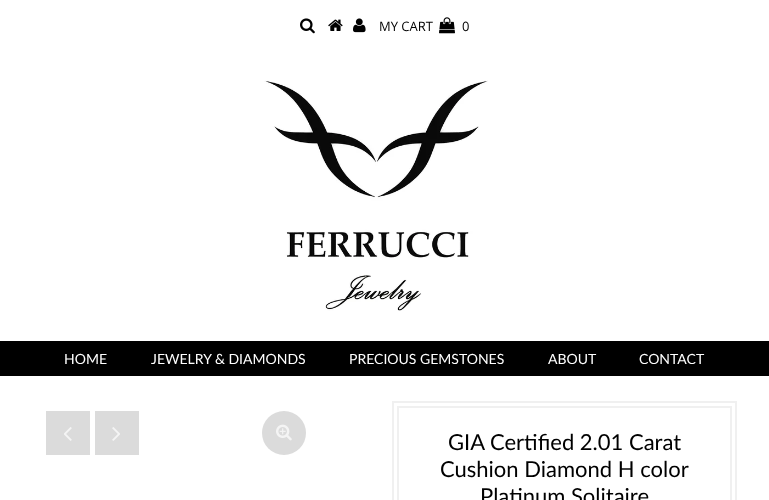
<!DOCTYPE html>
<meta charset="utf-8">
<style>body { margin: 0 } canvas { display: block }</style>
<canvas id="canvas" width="769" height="500"></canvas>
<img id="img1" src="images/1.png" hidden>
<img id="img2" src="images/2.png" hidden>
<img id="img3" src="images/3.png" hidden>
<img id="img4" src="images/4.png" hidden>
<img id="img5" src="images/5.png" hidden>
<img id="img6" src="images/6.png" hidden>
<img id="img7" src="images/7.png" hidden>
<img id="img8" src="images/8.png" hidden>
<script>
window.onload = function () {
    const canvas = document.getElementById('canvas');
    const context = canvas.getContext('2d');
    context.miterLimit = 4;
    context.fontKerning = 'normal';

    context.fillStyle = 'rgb(255, 255, 255)';
    context.fillRect(0, 0, 769, 500);
    context.drawImage(document.getElementById('img1'), 300, 18, 15, 16);
    context.drawImage(document.getElementById('img2'), 328, 19, 15, 12);
    context.drawImage(document.getElementById('img3'), 353, 18, 13, 15);
    context.drawImage(document.getElementById('img4'), 439, 17, 16, 17);
    context.drawImage(document.getElementById('img5'), 264, 80, 224, 231);
    context.fillStyle = 'rgb(0, 0, 0)';
    context.fillRect(0, 341, 769, 35);
    context.fillStyle = 'rgb(219, 219, 219)';
    context.fillRect(46, 411, 44, 44);
    context.drawImage(document.getElementById('img6'), 64, 427, 8, 14);
    context.fillRect(95, 411, 44, 44);
    context.drawImage(document.getElementById('img7'), 112, 427, 8, 14);
    context.beginPath();
    context.arc(284, 433, 22, 0, 2 * Math.PI);
    context.fill();
    context.drawImage(document.getElementById('img8'), 276, 424, 16, 17);
    context.strokeStyle = 'rgb(240, 240, 240)';
    context.lineWidth = 2;
    context.strokeRect(393, 402, 343, 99);
    context.strokeRect(398, 407, 333, 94);
    context.font = '13px Open Sans';
    context.fillStyle = 'rgb(0, 0, 0)';
    context.fillText('MY CART', 379, 31);
    context.fillText('0', 462, 31);
    context.font = '14px Lato';
    context.fillStyle = 'rgb(255, 255, 255)';
    context.fillText('HOME', 64, 364);
    context.fillText('JEWELRY & DIAMONDS', 151, 364);
    context.fillText('PRECIOUS GEMSTONES', 349, 364);
    context.fillText('ABOUT', 548, 364);
    context.fillText('CONTACT', 639, 364);
    context.font = '22px Lato';
    context.fillStyle = 'rgb(0, 0, 0)';
    context.fillText('GIA Certified 2.01 Carat', 448, 450);
    context.fillText('Cushion Diamond H color', 440, 477);
    context.fillText('Platinum Solitaire', 480, 504);
};
</script>
